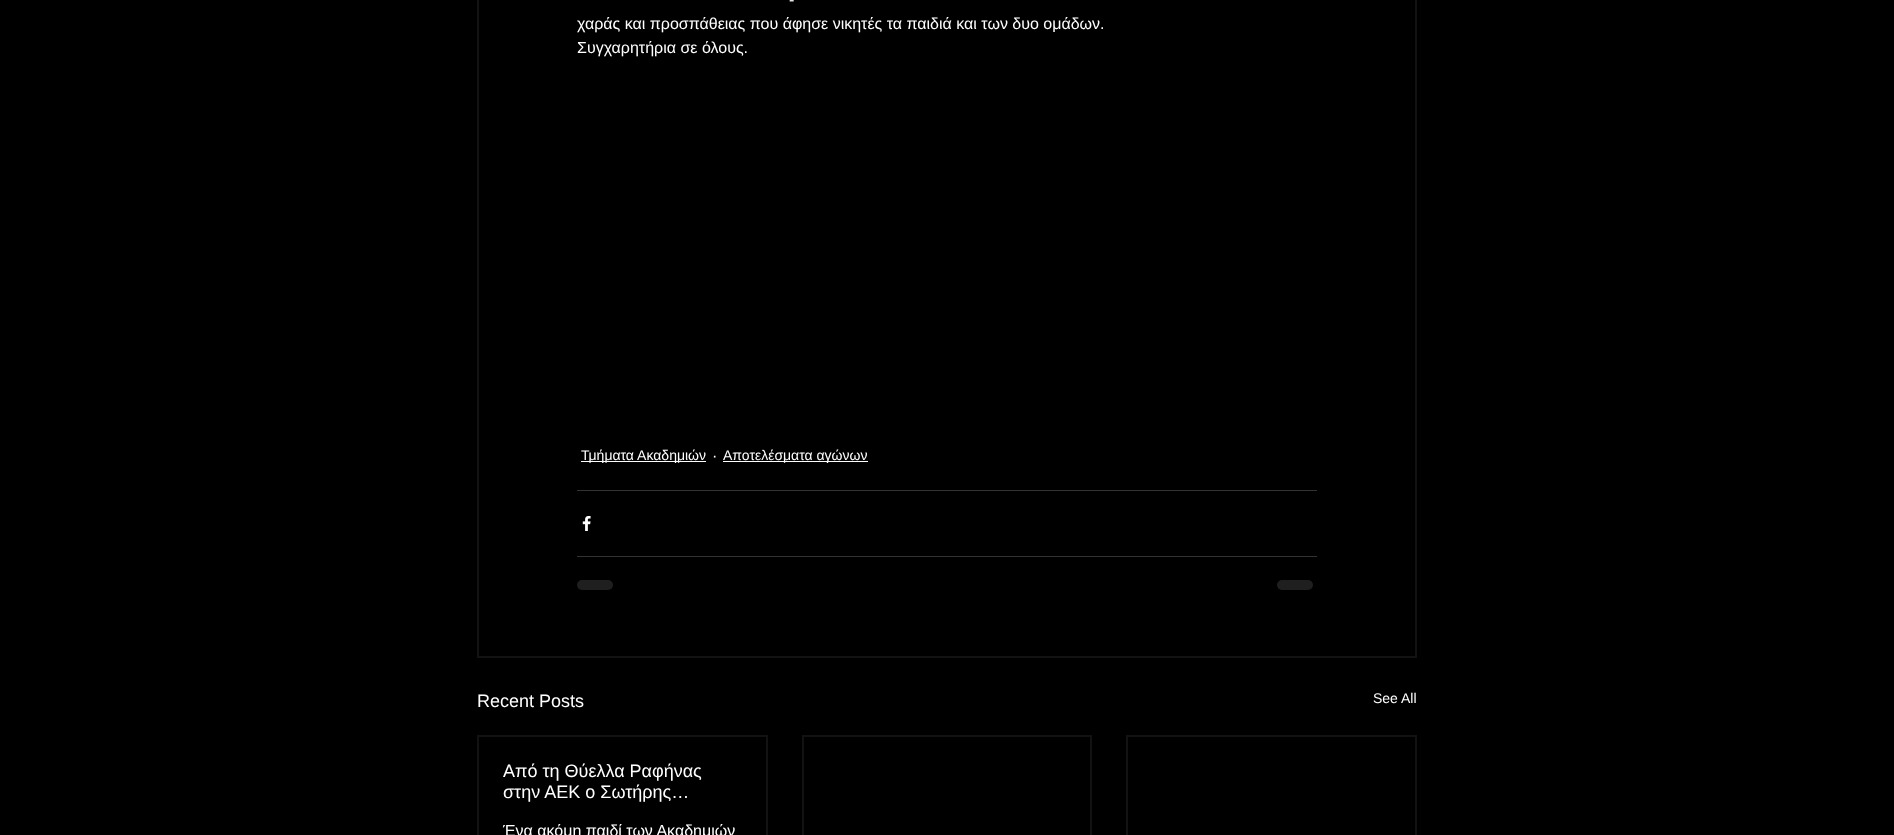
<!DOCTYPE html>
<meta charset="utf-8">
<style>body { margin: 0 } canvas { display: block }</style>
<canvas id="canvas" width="1894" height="835"></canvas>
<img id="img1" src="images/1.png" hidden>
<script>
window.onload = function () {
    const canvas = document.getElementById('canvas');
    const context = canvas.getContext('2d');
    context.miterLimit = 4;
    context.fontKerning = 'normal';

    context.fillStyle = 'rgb(0, 0, 0)';
    context.fillRect(0, 0, 1894, 835);
    context.strokeStyle = 'rgb(18, 18, 18)';
    context.lineWidth = 2;
    context.strokeRect(478, -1, 938, 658);
    context.fillStyle = 'rgb(255, 255, 255)';
    context.fillRect(581, 461, 125, 1);
    context.fillRect(723, 461, 145, 1);
    context.fillStyle = 'rgb(51, 51, 51)';
    context.fillRect(577, 490, 740, 1);
    context.drawImage(document.getElementById('img1'), 582, 516, 9, 15);
    context.fillRect(577, 556, 740, 1);
    context.fillStyle = 'rgb(31, 31, 31)';
    context.beginPath();
    context.roundRect(577, 580, 36, 10, 5);
    context.fill();
    context.beginPath();
    context.roundRect(1277, 580, 36, 10, 5);
    context.fill();
    context.strokeRect(478, 736, 289, 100);
    context.strokeRect(803, 736, 288, 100);
    context.strokeRect(1127, 736, 289, 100);
    context.font = '16px Liberation Sans';
    context.fillStyle = 'rgb(255, 255, 255)';
    context.fillText('-', 789, 5);
    context.fillText('χαράς και προσπάθειας που άφησε νικητές τα παιδιά και των δυο ομάδων.', 577, 29);
    context.fillText('Συγχαρητήρια σε όλους.', 577, 53);
    context.font = '14px Liberation Sans';
    context.fillText('Τμήματα Ακαδημιών', 581, 460);
    context.font = '16px Liberation Sans';
    context.fillText('·', 712, 461);
    context.font = '14px Liberation Sans';
    context.fillText('Αποτελέσματα αγώνων', 723, 460);
    context.font = '18px Liberation Sans';
    context.fillText('Recent Posts', 477, 707);
    context.font = '14px Liberation Sans';
    context.fillText('See All', 1373, 703);
    context.font = '18px Liberation Sans';
    context.fillText('Από τη Θύελλα Ραφήνας', 503, 777);
    context.fillText('στην ΑΕΚ ο Σωτήρης…', 503, 798);
    context.font = '16px Liberation Sans';
    context.fillText('Ένα ακόμη παιδί των Ακαδημιών', 503, 836);
};
</script>
